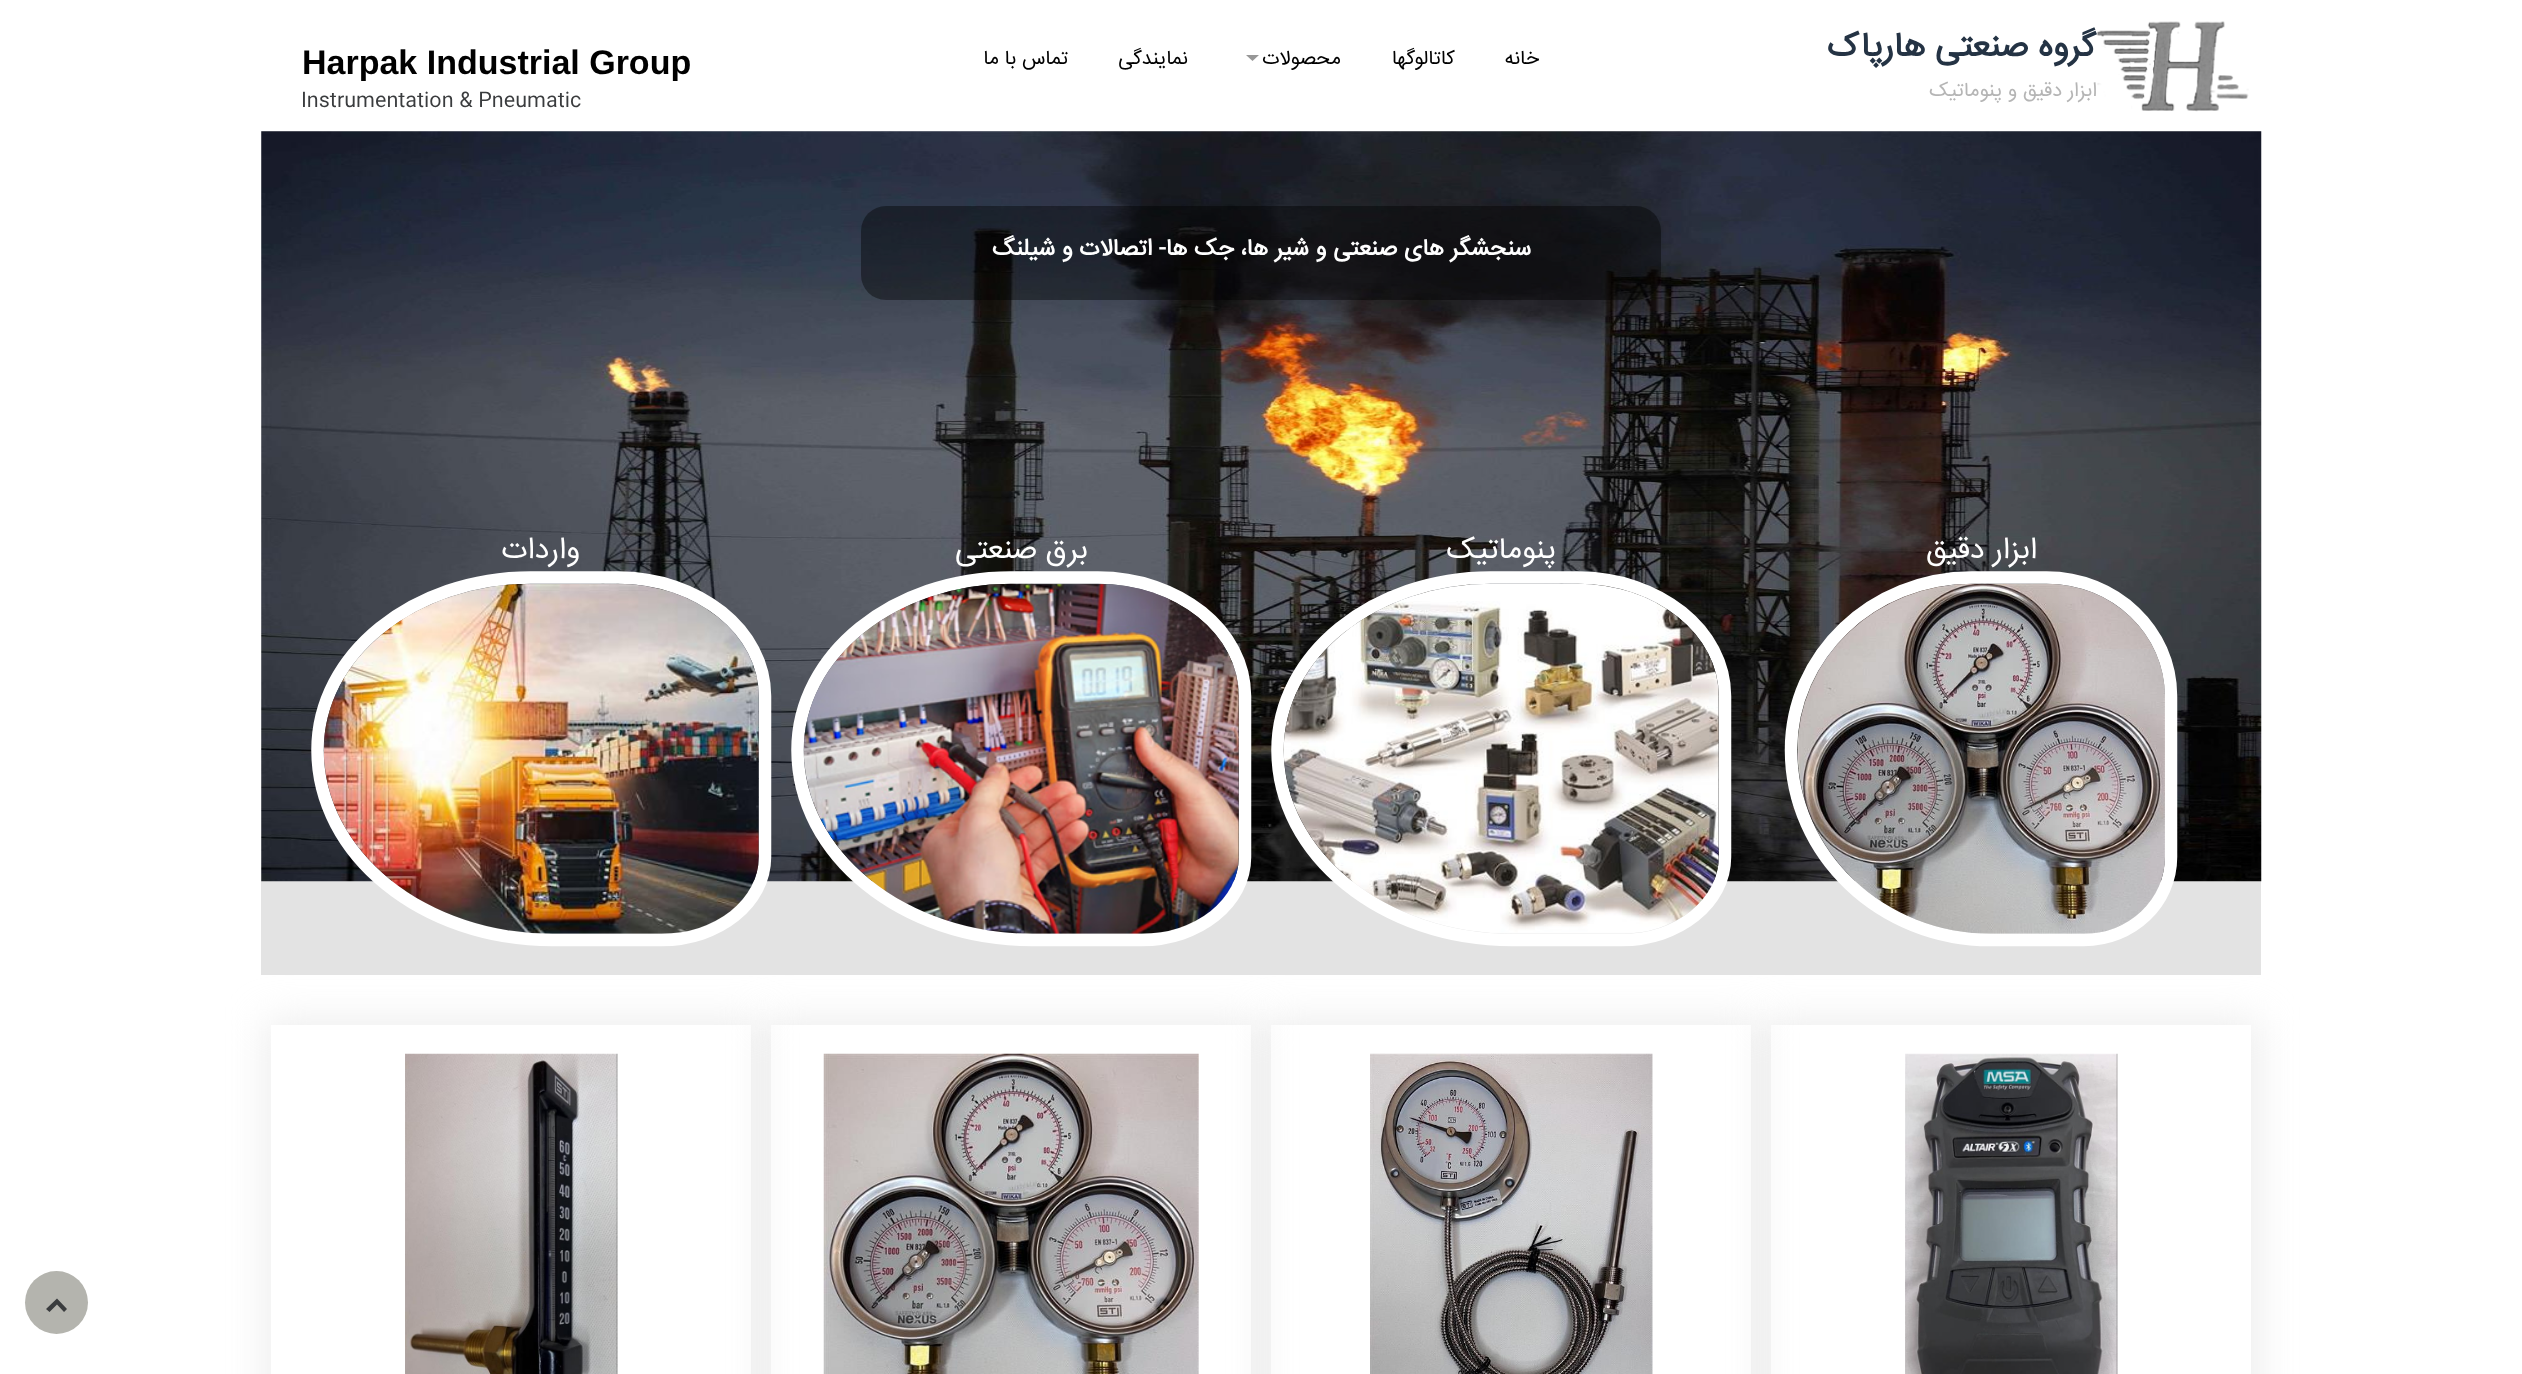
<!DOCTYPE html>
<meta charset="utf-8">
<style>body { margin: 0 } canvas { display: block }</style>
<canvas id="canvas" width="2522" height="1374"></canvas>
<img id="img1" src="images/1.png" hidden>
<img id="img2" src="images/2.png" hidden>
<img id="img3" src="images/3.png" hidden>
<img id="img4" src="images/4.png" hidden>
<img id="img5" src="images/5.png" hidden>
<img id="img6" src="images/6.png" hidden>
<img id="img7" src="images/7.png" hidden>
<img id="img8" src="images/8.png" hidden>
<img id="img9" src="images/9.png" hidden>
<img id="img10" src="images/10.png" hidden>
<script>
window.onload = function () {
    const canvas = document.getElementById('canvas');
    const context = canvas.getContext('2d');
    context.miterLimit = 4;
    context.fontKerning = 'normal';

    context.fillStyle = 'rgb(255, 255, 255)';
    context.fillRect(0, 0, 2522, 1374);
    context.fillStyle = 'rgb(239, 239, 239)';
    context.fillRect(261, 131, 2000, 750);
    context.drawImage(document.getElementById('img1'), 2097, 21, 152, 91);
    context.fillStyle = 'rgb(151, 151, 151)';
    context.beginPath();
    context.moveTo(1246, 55);
    context.lineTo(1259, 55);
    context.lineTo(1252.5, 61);
    context.closePath();
    context.fill();
    context.fillStyle = 'rgb(227, 227, 227)';
    context.fillRect(261, 881, 2000, 94);
    context.drawImage(document.getElementById('img2'), 261, 131, 2001, 751);
    context.fillStyle = 'rgba(0, 0, 0, 0.4)';
    context.beginPath();
    context.roundRect(861, 206, 800, 94, 25);
    context.fill();
    context.beginPath();
    context.moveTo(1972, 577.5);
    context.lineTo(2046.5, 577.5);
    context.bezierCurveTo(2115.5, 577.5, 2171, 630.5, 2171, 696);
    context.lineTo(2171, 857);
    context.bezierCurveTo(2171, 903, 2132, 940, 2084, 940);
    context.lineTo(1990.5, 940);
    context.bezierCurveTo(1880.5, 940, 1791, 855, 1791, 750);
    context.bezierCurveTo(1791, 654.5, 1872, 577.5, 1972, 577.5);
    context.closePath();
    context.strokeStyle = 'rgb(255, 255, 255)';
    context.lineWidth = 12.5;
    context.stroke();
    context.drawImage(document.getElementById('img3'), 1797, 583, 368, 351);
    context.beginPath();
    context.moveTo(1490.5, 577.5);
    context.lineTo(1578, 577.5);
    context.bezierCurveTo(1659, 577.5, 1725, 630.5, 1725, 696);
    context.lineTo(1725, 857);
    context.bezierCurveTo(1725, 903, 1679, 940, 1621.5, 940);
    context.lineTo(1512, 940);
    context.bezierCurveTo(1382.5, 940, 1277.5, 855, 1277.5, 750);
    context.bezierCurveTo(1277.5, 654.5, 1373, 577.5, 1490.5, 577.5);
    context.closePath();
    context.stroke();
    context.drawImage(document.getElementById('img4'), 1284, 584, 435, 350);
    context.beginPath();
    context.moveTo(1010.5, 577.5);
    context.lineTo(1098, 577.5);
    context.bezierCurveTo(1179, 577.5, 1245, 630.5, 1245, 696);
    context.lineTo(1245, 857);
    context.bezierCurveTo(1245, 903, 1199, 940, 1141.5, 940);
    context.lineTo(1032, 940);
    context.bezierCurveTo(902.5, 940, 797.5, 855, 797.5, 750);
    context.bezierCurveTo(797.5, 654.5, 893, 577.5, 1010.5, 577.5);
    context.closePath();
    context.stroke();
    context.drawImage(document.getElementById('img5'), 803, 583, 436, 351);
    context.beginPath();
    context.moveTo(530.5, 577.5);
    context.lineTo(618, 577.5);
    context.bezierCurveTo(699, 577.5, 765, 630.5, 765, 696);
    context.lineTo(765, 857);
    context.bezierCurveTo(765, 903, 719, 940, 661.5, 940);
    context.lineTo(552, 940);
    context.bezierCurveTo(422.5, 940, 317.5, 855, 317.5, 750);
    context.bezierCurveTo(317.5, 654.5, 413, 577.5, 530.5, 577.5);
    context.closePath();
    context.stroke();
    context.drawImage(document.getElementById('img6'), 323, 584, 436, 350);
    context.save();
    context.beginPath();
    context.moveTo(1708, 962);
    context.lineTo(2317, 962);
    context.lineTo(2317, 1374);
    context.lineTo(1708, 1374);
    context.closePath();
    context.moveTo(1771, 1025);
    context.lineTo(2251, 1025);
    context.lineTo(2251, 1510);
    context.lineTo(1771, 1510);
    context.closePath();
    context.clip('evenodd');
    context.fillStyle = 'rgba(228, 228, 228, 0.68)';
    context.filter = 'blur(19px)';
    context.beginPath();
    context.rect(1766, 1020, 493, 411);
    context.fill();
    context.filter = 'none';
    context.restore();
    context.drawImage(document.getElementById('img7'), 1905, 1053, 213, 321);
    context.save();
    context.beginPath();
    context.moveTo(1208, 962);
    context.lineTo(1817, 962);
    context.lineTo(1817, 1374);
    context.lineTo(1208, 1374);
    context.closePath();
    context.moveTo(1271, 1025);
    context.lineTo(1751, 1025);
    context.lineTo(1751, 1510);
    context.lineTo(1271, 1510);
    context.closePath();
    context.clip('evenodd');
    context.fillStyle = 'rgba(228, 228, 228, 0.68)';
    context.filter = 'blur(19px)';
    context.beginPath();
    context.rect(1266, 1020, 493, 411);
    context.fill();
    context.filter = 'none';
    context.restore();
    context.drawImage(document.getElementById('img8'), 1370, 1053, 283, 321);
    context.save();
    context.beginPath();
    context.moveTo(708, 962);
    context.lineTo(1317, 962);
    context.lineTo(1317, 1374);
    context.lineTo(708, 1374);
    context.closePath();
    context.moveTo(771, 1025);
    context.lineTo(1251, 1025);
    context.lineTo(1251, 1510);
    context.lineTo(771, 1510);
    context.closePath();
    context.clip('evenodd');
    context.fillStyle = 'rgba(228, 228, 228, 0.68)';
    context.filter = 'blur(19px)';
    context.beginPath();
    context.rect(766, 1020, 493, 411);
    context.fill();
    context.filter = 'none';
    context.restore();
    context.drawImage(document.getElementById('img9'), 823, 1053, 376, 321);
    context.save();
    context.beginPath();
    context.moveTo(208, 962);
    context.lineTo(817, 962);
    context.lineTo(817, 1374);
    context.lineTo(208, 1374);
    context.closePath();
    context.moveTo(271, 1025);
    context.lineTo(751, 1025);
    context.lineTo(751, 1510);
    context.lineTo(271, 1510);
    context.closePath();
    context.clip('evenodd');
    context.fillStyle = 'rgba(228, 228, 228, 0.68)';
    context.filter = 'blur(19px)';
    context.beginPath();
    context.rect(266, 1020, 493, 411);
    context.fill();
    context.filter = 'none';
    context.restore();
    context.drawImage(document.getElementById('img10'), 405, 1053, 213, 321);
    context.fillStyle = 'rgb(180, 180, 174)';
    context.beginPath();
    context.arc(56.5, 1302.5, 31.5, 0, 2 * Math.PI);
    context.fill();
    context.fillStyle = 'rgb(58, 60, 62)';
    context.beginPath();
    context.moveTo(46, 1309);
    context.lineTo(57, 1298.5);
    context.lineTo(67, 1309);
    context.lineTo(64, 1312);
    context.lineTo(57, 1304.5);
    context.lineTo(49.5, 1312);
    context.closePath();
    context.fill();
    context.direction = 'rtl';
    context.font = 'bold 34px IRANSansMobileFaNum';
    context.fillStyle = 'rgb(36, 51, 68)';
    context.fillText('گروه صنعتی هارپاک', 2096, 56);
    context.font = '20px IRANSansMobileFaNum';
    context.fillStyle = 'rgb(181, 181, 181)';
    context.fillText('ابزار دقیق و پنوماتیک', 2097, 96);
    context.fillStyle = 'rgb(0, 0, 0)';
    context.fillText('خانه', 1539, 64);
    context.fillText('کاتالوگها', 1455, 64);
    context.fillText('محصولات', 1341, 64);
    context.fillText('نمایندگی', 1188, 64);
    context.fillText('تماس با ما', 1068, 64);
    context.direction = 'ltr';
    context.font = 'bold 34px Liberation Sans';
    context.fillText('Harpak Industrial Group', 302, 74);
    context.font = '20px IRANSansMobileFaNum';
    context.fillStyle = 'rgb(58, 60, 62)';
    context.fillText('Instrumentation & Pneumatic', 301, 106);
    context.direction = 'rtl';
    context.font = 'bold 23.4px IRANSansMobileFaNum';
    context.fillStyle = 'rgb(255, 255, 255)';
    context.fillText('سنجشگر های صنعتی و شیر ها، جک ها- اتصالات و شیلنگ', 1531, 255);
    context.font = '30px IRANSansMobileFaNum';
    context.fillText('ابزار دقیق', 2037, 558);
    context.fillText('پنوماتیک', 1556, 558);
    context.fillText('برق صنعتی', 1088, 558);
    context.fillText('واردات', 580, 558);
};
</script>
